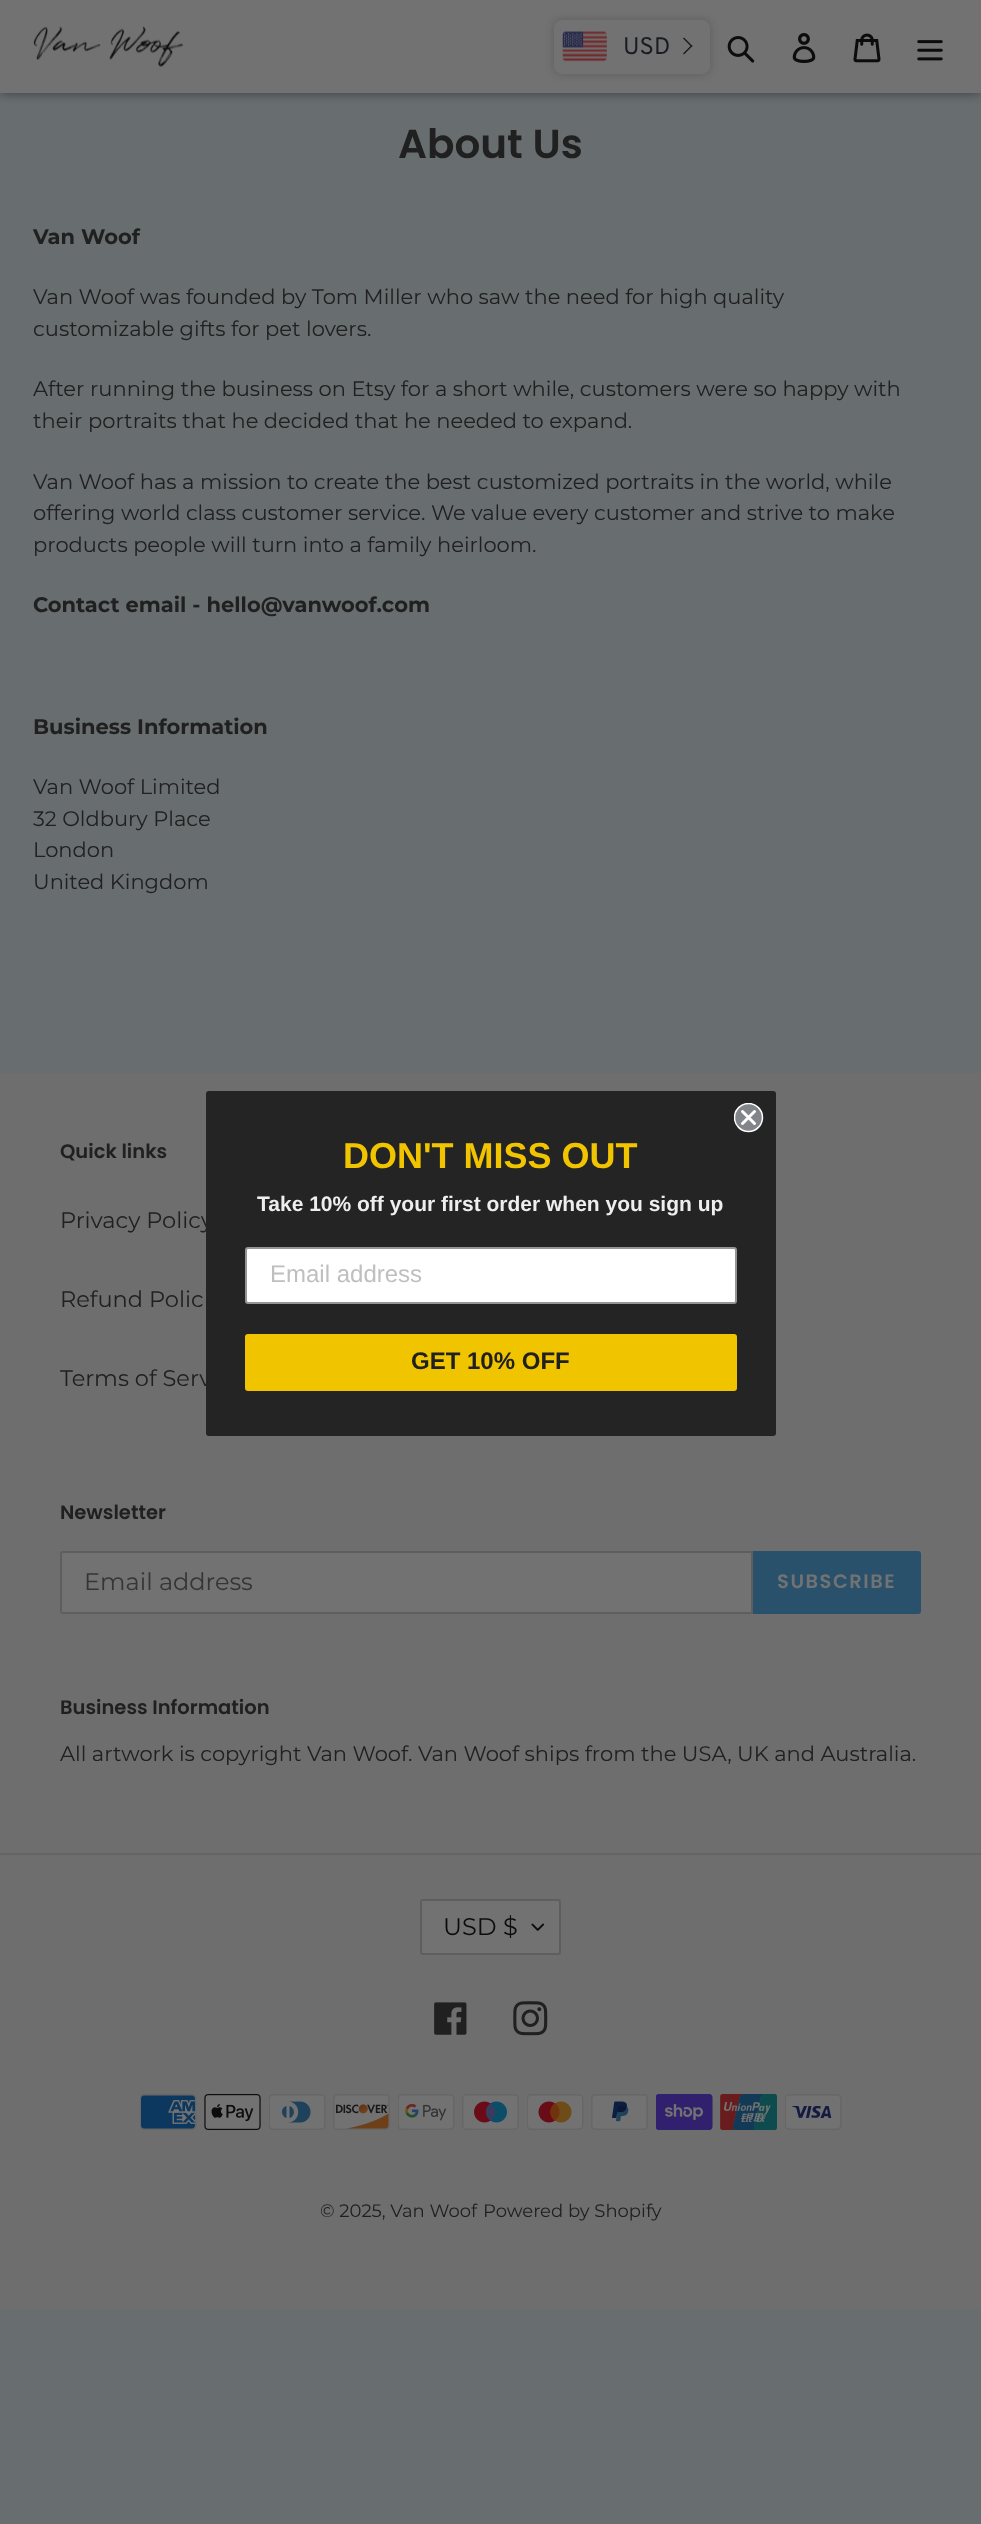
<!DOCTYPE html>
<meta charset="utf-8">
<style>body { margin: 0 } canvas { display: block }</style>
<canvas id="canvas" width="981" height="2524"></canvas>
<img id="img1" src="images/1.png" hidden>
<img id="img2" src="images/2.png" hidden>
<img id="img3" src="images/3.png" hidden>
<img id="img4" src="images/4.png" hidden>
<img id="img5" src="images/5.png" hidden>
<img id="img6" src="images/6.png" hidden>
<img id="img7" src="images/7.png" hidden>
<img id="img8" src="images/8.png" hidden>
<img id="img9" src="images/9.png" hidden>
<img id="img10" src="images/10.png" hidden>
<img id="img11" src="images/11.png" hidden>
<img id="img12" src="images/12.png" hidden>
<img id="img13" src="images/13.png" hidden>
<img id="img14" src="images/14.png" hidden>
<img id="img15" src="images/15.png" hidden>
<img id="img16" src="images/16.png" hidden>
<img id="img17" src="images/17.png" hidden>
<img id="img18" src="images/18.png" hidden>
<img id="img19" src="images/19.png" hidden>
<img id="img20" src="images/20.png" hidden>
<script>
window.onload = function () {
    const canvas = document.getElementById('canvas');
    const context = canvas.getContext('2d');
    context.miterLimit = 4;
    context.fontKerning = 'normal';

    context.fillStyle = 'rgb(104, 109, 111)';
    context.fillRect(0, 0, 981, 2524);
    context.fillStyle = 'rgba(12, 12, 12, 0.5)';
    context.filter = 'blur(5.5px)';
    context.beginPath();
    context.rect(0, 0, 981, 93);
    context.fill();
    context.filter = 'none';
    context.fillStyle = 'rgb(114, 114, 114)';
    context.fillRect(0, 0, 981, 93);
    context.drawImage(document.getElementById('img1'), 33, 26, 150, 41);
    context.fillStyle = 'rgba(25, 29, 34, 0.25)';
    context.filter = 'blur(4px)';
    context.beginPath();
    context.roundRect(554, 20, 156, 54, 8);
    context.fill();
    context.filter = 'none';
    context.fillStyle = 'rgb(114, 114, 114)';
    context.beginPath();
    context.roundRect(554, 20, 156, 54, 8);
    context.fill();
    context.drawImage(document.getElementById('img2'), 562, 31, 45, 31);
    context.fillStyle = 'rgb(25, 29, 34)';
    context.beginPath();
    context.moveTo(683, 38.5);
    context.lineTo(684, 37.5);
    context.lineTo(692.5, 46);
    context.lineTo(691.5, 47);
    context.closePath();
    context.fill();
    context.beginPath();
    context.moveTo(683, 53.5);
    context.lineTo(691.5, 45);
    context.lineTo(692.5, 46);
    context.lineTo(684, 54.5);
    context.closePath();
    context.fill();
    context.drawImage(document.getElementById('img3'), 727, 36, 28, 27);
    context.drawImage(document.getElementById('img4'), 792, 33, 24, 30);
    context.drawImage(document.getElementById('img5'), 853, 33, 28, 30);
    context.drawImage(document.getElementById('img6'), 917, 40, 26, 21);
    context.fillStyle = 'rgb(110, 110, 110)';
    context.fillRect(0, 1073, 981, 1236);
    context.fillStyle = 'rgb(114, 114, 114)';
    context.beginPath();
    context.roundRect(61, 1552, 691, 61, [2, 0, 0, 2]);
    context.fill();
    context.strokeStyle = 'rgb(94, 94, 94)';
    context.lineWidth = 2;
    context.stroke();
    context.fillStyle = 'rgb(41, 81, 108)';
    context.beginPath();
    context.roundRect(753, 1551, 168, 63, [0, 3, 3, 0]);
    context.fill();
    context.fillStyle = 'rgb(100, 100, 100)';
    context.fillRect(0, 1853, 981, 2);
    context.fillStyle = 'rgb(114, 114, 114)';
    context.beginPath();
    context.roundRect(420, 1899, 141, 56, 3);
    context.fill();
    context.drawImage(document.getElementById('img7'), 531, 1923, 14, 8);
    context.beginPath();
    context.roundRect(421, 1900, 139, 54, 2);
    context.stroke();
    context.drawImage(document.getElementById('img8'), 434, 2002, 33, 33);
    context.drawImage(document.getElementById('img9'), 513, 2001, 35, 35);
    context.drawImage(document.getElementById('img10'), 140, 2094, 57, 36);
    context.drawImage(document.getElementById('img11'), 204, 2094, 57, 36);
    context.drawImage(document.getElementById('img12'), 269, 2094, 57, 36);
    context.drawImage(document.getElementById('img13'), 333, 2094, 57, 36);
    context.drawImage(document.getElementById('img14'), 398, 2094, 57, 36);
    context.drawImage(document.getElementById('img15'), 462, 2094, 57, 36);
    context.drawImage(document.getElementById('img16'), 527, 2094, 57, 36);
    context.drawImage(document.getElementById('img17'), 591, 2094, 57, 36);
    context.drawImage(document.getElementById('img18'), 656, 2094, 57, 36);
    context.drawImage(document.getElementById('img19'), 720, 2094, 57, 36);
    context.drawImage(document.getElementById('img20'), 785, 2094, 57, 36);
    context.font = '24px Overpass';
    context.fillStyle = 'rgb(25, 29, 34)';
    context.fillText('USD', 623, 54);
    context.font = '600 40.5px Poppins';
    context.fillStyle = 'rgb(32, 32, 32)';
    context.fillText('About Us', 398, 158);
    context.font = 'bold 21px Montserrat';
    context.fillText('Van Woof', 33, 244);
    context.font = '21px Montserrat';
    context.fillText('Van Woof was founded by Tom Miller who saw the need for high quality', 33, 304);
    context.fillText('customizable gifts for pet lovers.', 33, 336);
    context.fillText('After running the business on Etsy for a short while, customers were so happy with', 33, 396);
    context.fillText('their portraits that he decided that he needed to expand.', 33, 428);
    context.fillText('Van Woof has a mission to create the best customized portraits in the world, while', 33, 489);
    context.fillText('offering world class customer service. We value every customer and strive to make', 33, 520);
    context.fillText('products people will turn into a family heirloom.', 33, 552);
    context.font = 'bold 21px Montserrat';
    context.fillText('Contact email - hello@vanwoof.com', 33, 612);
    context.fillText('Business Information', 33, 734);
    context.font = '21px Montserrat';
    context.fillText('Van Woof Limited', 33, 794);
    context.fillText('32 Oldbury Place', 33, 826);
    context.fillText('London', 33, 857);
    context.fillText('United Kingdom', 33, 889);
    context.font = '600 19.5px Poppins';
    context.fillText('Quick links', 60, 1158);
    context.font = '22.5px Montserrat';
    context.fillText('Privacy Policy', 60, 1228);
    context.fillText('Refund Polic', 60, 1307);
    context.fillText('Terms of Serv', 60, 1386);
    context.font = '600 19.5px Poppins';
    context.fillText('Newsletter', 60, 1519);
    context.font = '24px Montserrat';
    context.fillStyle = 'rgb(53, 53, 53)';
    context.fillText('Email address', 84, 1590);
    context.letterSpacing = '1.5px';
    context.font = '600 19.5px Poppins';
    context.fillStyle = 'rgb(114, 114, 114)';
    context.fillText('SUBSCRIBE', 777, 1588);
    context.letterSpacing = '0px';
    context.fillStyle = 'rgb(32, 32, 32)';
    context.fillText('Business Information', 60, 1714);
    context.font = '21px Montserrat';
    context.fillText('All artwork is copyright Van Woof. Van Woof ships from the USA, UK and Australia.', 60, 1761);
    context.font = '24px Montserrat';
    context.fillStyle = 'rgb(12, 12, 12)';
    context.fillText('USD $', 443, 1935);
    context.font = '18px Montserrat';
    context.fillStyle = 'rgb(32, 32, 32)';
    context.fillText('© 2025, Van Woof', 320, 2217);
    context.fillText('Powered by Shopify', 483, 2217);
    context.fillStyle = 'rgb(36, 36, 36)';
    context.beginPath();
    context.roundRect(206, 1091, 570, 345, 3);
    context.fill();
    context.fillStyle = 'rgb(130, 134, 139)';
    context.beginPath();
    context.arc(748.5, 1117.5, 14, 0, 2 * Math.PI);
    context.fill();
    context.save();
    context.beginPath();
    context.rect(734, 1103, 30, 30);
    context.clip();
    context.beginPath();
    context.arc(748.5, 1117.5, 14, 0, 2 * Math.PI);
    context.strokeStyle = 'rgb(255, 255, 255)';
    context.lineWidth = 1.5;
    context.stroke();
    context.restore();
    context.beginPath();
    context.moveTo(742.5, 1111.5);
    context.lineTo(754.5, 1123.5);
    context.moveTo(742.5, 1123.5);
    context.lineTo(754.5, 1111.5);
    context.closePath();
    context.strokeStyle = 'rgb(255, 255, 255)';
    context.lineWidth = 3;
    context.lineCap = 'round';
    context.lineJoin = 'round';
    context.stroke();
    context.font = 'bold 36px Liberation Sans';
    context.fillStyle = 'rgb(241, 196, 0)';
    context.fillText('DON\'T MISS OUT', 343, 1168);
    context.font = 'bold 21px Liberation Sans';
    context.fillStyle = 'rgb(238, 238, 238)';
    context.fillText('Take 10% off your first order when you sign up', 257, 1211);
    context.fillStyle = 'rgb(255, 255, 255)';
    context.beginPath();
    context.roundRect(246, 1248, 490, 55, 2);
    context.fill();
    context.strokeStyle = 'rgb(148, 149, 150)';
    context.lineWidth = 2;
    context.lineJoin = 'miter';
    context.stroke();
    context.font = '24px Liberation Sans';
    context.fillStyle = 'rgb(191, 191, 192)';
    context.fillText('Email address', 270, 1282);
    context.fillStyle = 'rgb(241, 196, 0)';
    context.beginPath();
    context.roundRect(245, 1334, 492, 57, 3);
    context.fill();
    context.font = 'bold 24px Liberation Sans';
    context.fillStyle = 'rgb(32, 32, 32)';
    context.fillText('GET 10% OFF', 411, 1369);
};
</script>
